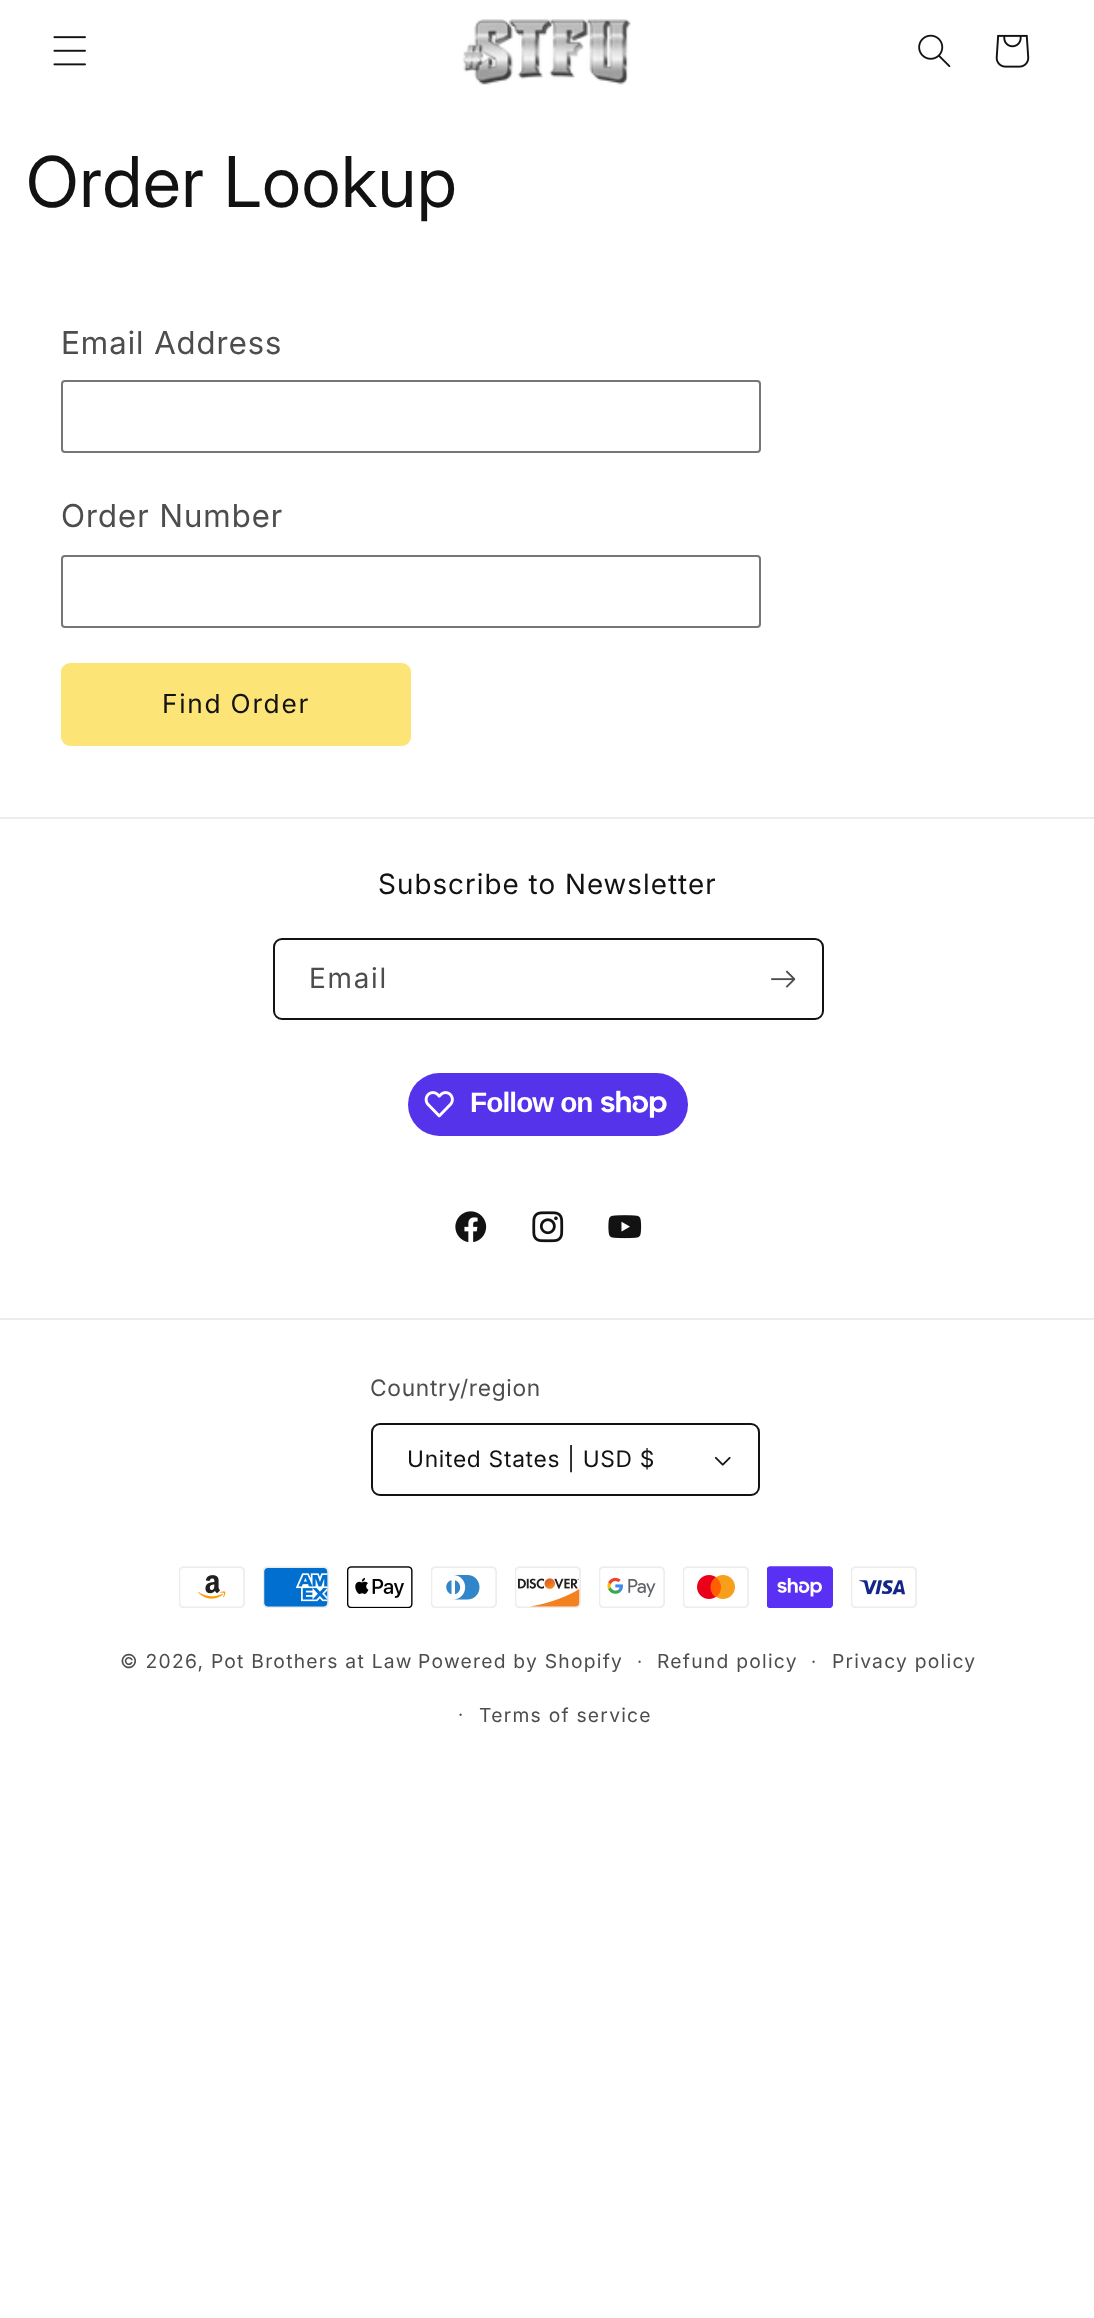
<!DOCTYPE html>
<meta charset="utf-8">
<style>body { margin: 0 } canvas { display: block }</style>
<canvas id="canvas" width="1094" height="2318"></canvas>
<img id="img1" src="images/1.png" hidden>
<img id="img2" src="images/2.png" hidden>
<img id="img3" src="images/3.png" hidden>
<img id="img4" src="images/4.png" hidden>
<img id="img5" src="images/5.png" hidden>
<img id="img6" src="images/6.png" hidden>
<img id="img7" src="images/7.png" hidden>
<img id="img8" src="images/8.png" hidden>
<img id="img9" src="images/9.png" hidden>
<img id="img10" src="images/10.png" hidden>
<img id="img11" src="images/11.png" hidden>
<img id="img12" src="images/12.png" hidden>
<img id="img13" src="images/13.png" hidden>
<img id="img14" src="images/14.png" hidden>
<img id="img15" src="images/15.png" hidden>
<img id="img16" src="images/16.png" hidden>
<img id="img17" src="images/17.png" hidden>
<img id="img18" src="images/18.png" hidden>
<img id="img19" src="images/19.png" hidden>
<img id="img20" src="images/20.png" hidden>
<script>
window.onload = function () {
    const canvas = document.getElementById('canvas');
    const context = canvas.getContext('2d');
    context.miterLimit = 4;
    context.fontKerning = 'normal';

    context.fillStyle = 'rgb(255, 255, 255)';
    context.fillRect(0, 0, 1094, 2318);
    context.drawImage(document.getElementById('img1'), 53, 36, 33, 30);
    context.drawImage(document.getElementById('img2'), 462, 19, 169, 66);
    context.drawImage(document.getElementById('img3'), 918, 34, 33, 34);
    context.drawImage(document.getElementById('img4'), 995, 34, 35, 34);
    context.beginPath();
    context.roundRect(62, 381, 698, 71, 3);
    context.strokeStyle = 'rgb(118, 118, 118)';
    context.lineWidth = 2;
    context.stroke();
    context.beginPath();
    context.roundRect(62, 556, 698, 71, 3);
    context.stroke();
    context.fillStyle = 'rgb(252, 228, 119)';
    context.beginPath();
    context.roundRect(61, 663, 350, 83, 9);
    context.fill();
    context.fillStyle = 'rgb(236, 236, 236)';
    context.fillRect(0, 817, 1094, 2);
    context.beginPath();
    context.roundRect(274, 939, 549, 80, 8);
    context.strokeStyle = 'rgb(18, 18, 18)';
    context.stroke();
    context.drawImage(document.getElementById('img5'), 771, 970, 25, 18);
    context.fillStyle = 'rgb(84, 51, 235)';
    context.beginPath();
    context.roundRect(408, 1073, 280, 63, 31.5);
    context.fill();
    context.drawImage(document.getElementById('img6'), 424, 1091, 30, 27);
    context.drawImage(document.getElementById('img7'), 601, 1090, 66, 28);
    context.drawImage(document.getElementById('img8'), 455, 1211, 32, 32);
    context.drawImage(document.getElementById('img9'), 532, 1211, 32, 32);
    context.drawImage(document.getElementById('img10'), 608, 1215, 34, 24);
    context.fillStyle = 'rgb(236, 236, 236)';
    context.fillRect(0, 1318, 1094, 2);
    context.drawImage(document.getElementById('img11'), 714, 1456, 17, 10);
    context.beginPath();
    context.roundRect(372, 1424, 387, 71, 8);
    context.stroke();
    context.drawImage(document.getElementById('img12'), 179, 1566, 66, 42);
    context.drawImage(document.getElementById('img13'), 263, 1566, 66, 42);
    context.drawImage(document.getElementById('img14'), 347, 1566, 66, 42);
    context.drawImage(document.getElementById('img15'), 431, 1566, 66, 42);
    context.drawImage(document.getElementById('img16'), 515, 1566, 66, 42);
    context.drawImage(document.getElementById('img17'), 599, 1566, 66, 42);
    context.drawImage(document.getElementById('img18'), 683, 1566, 66, 42);
    context.drawImage(document.getElementById('img19'), 767, 1566, 66, 42);
    context.drawImage(document.getElementById('img20'), 851, 1566, 66, 42);
    context.letterSpacing = '1.05px';
    context.font = '70px Inter';
    context.fillStyle = 'rgb(18, 18, 18)';
    context.fillText('Order Lookup', 26, 207);
    context.font = '31.5px "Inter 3"';
    context.fillStyle = 'rgb(77, 77, 77)';
    context.fillText('Email Address', 61, 354);
    context.fillText('Order Number', 61, 527);
    context.letterSpacing = '1.75px';
    context.wordSpacing = '-1px';
    context.font = '26.25px "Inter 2"';
    context.fillStyle = 'rgb(18, 18, 18)';
    context.fillText('Find Order', 162, 713);
    context.letterSpacing = '1.05px';
    context.wordSpacing = '0px';
    context.font = '28px "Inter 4"';
    context.fillText('Subscribe to Newsletter', 378, 894);
    context.letterSpacing = '1.75px';
    context.fillStyle = 'rgb(77, 77, 77)';
    context.fillText('Email', 309, 988);
    context.letterSpacing = '-0.9px';
    context.font = 'bold 28px Liberation Sans';
    context.fillStyle = 'rgb(255, 255, 255)';
    context.fillText('Follow on', 470, 1112);
    context.letterSpacing = '0.7px';
    context.font = '22.75px "Inter 2"';
    context.fillStyle = 'rgb(77, 77, 77)';
    context.fillText('Country/region', 370, 1396);
    context.fillStyle = 'rgb(18, 18, 18)';
    context.fillText('United States | USD $', 407, 1467);
    context.letterSpacing = '1.25px';
    context.font = '19.25px "Inter 2"';
    context.fillStyle = 'rgb(77, 77, 77)';
    context.fillText('© 2026, Pot Brothers at Law', 120, 1668);
    context.fillText('Powered by Shopify', 418, 1668);
    context.font = '18px "Inter 2"';
    context.fillText('·', 637, 1668);
    context.font = '19.25px "Inter 2"';
    context.fillText('Refund policy', 657, 1668);
    context.font = '18px "Inter 2"';
    context.fillText('·', 811, 1668);
    context.font = '19.25px "Inter 2"';
    context.fillText('Privacy policy', 832, 1668);
    context.font = '18px "Inter 2"';
    context.fillText('·', 458, 1721);
    context.font = '19.25px "Inter 2"';
    context.fillText('Terms of service', 479, 1722);
};
</script>
